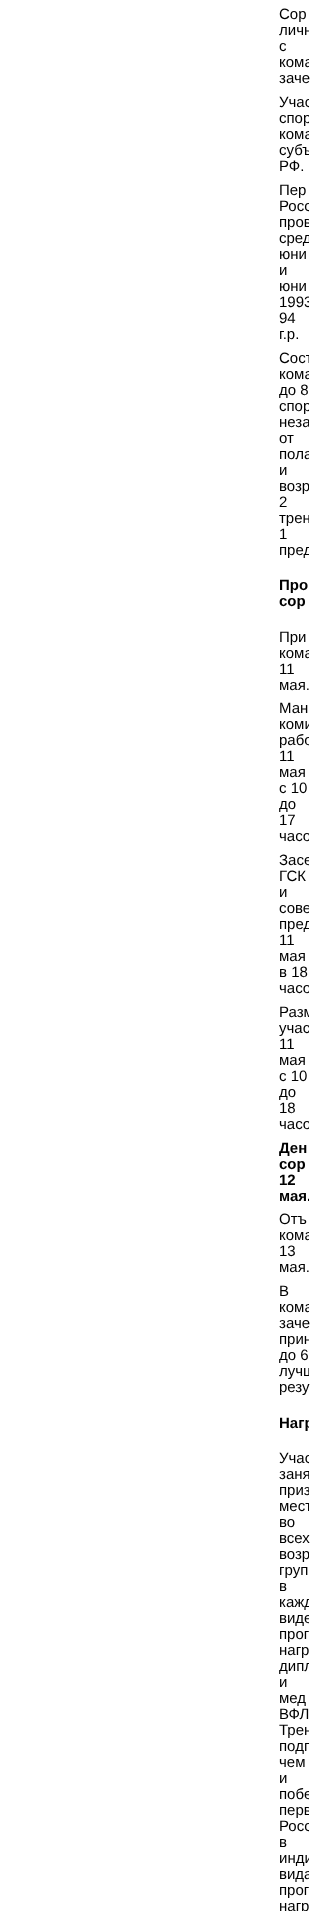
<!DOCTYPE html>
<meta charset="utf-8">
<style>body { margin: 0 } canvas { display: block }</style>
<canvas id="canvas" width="317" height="1911"></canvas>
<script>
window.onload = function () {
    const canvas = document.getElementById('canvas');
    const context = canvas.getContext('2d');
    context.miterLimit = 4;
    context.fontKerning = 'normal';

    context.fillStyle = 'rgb(255, 255, 255)';
    context.fillRect(0, 0, 317, 1911);
    context.font = '15px Liberation Sans';
    context.fillStyle = 'rgb(0, 0, 0)';
    context.fillText('Сор', 279, 19);
    context.save();
    context.beginPath();
    context.rect(279, 0, 30, 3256);
    context.clip();
    context.fillText('личн', 279, 35);
    context.restore();
    context.fillText('с', 279, 51);
    context.save();
    context.beginPath();
    context.rect(279, 0, 30, 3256);
    context.clip();
    context.fillText('кома', 279, 67);
    context.restore();
    context.fillText('заче', 279, 83);
    context.save();
    context.beginPath();
    context.rect(279, 0, 30, 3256);
    context.clip();
    context.fillText('Учас', 279, 107);
    context.fillText('спор', 279, 123);
    context.fillText('кома', 279, 139);
    context.fillText('субъ', 279, 155);
    context.restore();
    context.fillText('РФ.', 279, 171);
    context.fillText('Пер', 279, 195);
    context.save();
    context.beginPath();
    context.rect(279, 0, 30, 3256);
    context.clip();
    context.fillText('Росс', 279, 211);
    context.fillText('пров', 279, 227);
    context.fillText('сред', 279, 243);
    context.restore();
    context.fillText('юни', 279, 259);
    context.fillText('и', 279, 275);
    context.fillText('юни', 279, 291);
    context.save();
    context.beginPath();
    context.rect(279, 0, 30, 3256);
    context.clip();
    context.fillText('1993', 279, 307);
    context.restore();
    context.fillText('94', 279, 323);
    context.fillText('г.р.', 279, 339);
    context.save();
    context.beginPath();
    context.rect(279, 0, 30, 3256);
    context.clip();
    context.fillText('Сост', 279, 363);
    context.fillText('кома', 279, 379);
    context.restore();
    context.fillText('до 8', 279, 395);
    context.save();
    context.beginPath();
    context.rect(279, 0, 30, 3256);
    context.clip();
    context.fillText('спор', 279, 411);
    context.fillText('неза', 279, 427);
    context.restore();
    context.fillText('от', 279, 443);
    context.save();
    context.beginPath();
    context.rect(279, 0, 30, 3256);
    context.clip();
    context.fillText('пола', 279, 459);
    context.restore();
    context.fillText('и', 279, 475);
    context.save();
    context.beginPath();
    context.rect(279, 0, 30, 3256);
    context.clip();
    context.fillText('возр', 279, 491);
    context.restore();
    context.fillText('2', 279, 507);
    context.save();
    context.beginPath();
    context.rect(279, 0, 30, 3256);
    context.clip();
    context.fillText('трен', 279, 523);
    context.restore();
    context.fillText('1', 279, 539);
    context.save();
    context.beginPath();
    context.rect(279, 0, 30, 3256);
    context.clip();
    context.fillText('пред', 279, 555);
    context.restore();
    context.font = 'bold 15px Liberation Sans';
    context.fillText('Про', 279, 590);
    context.fillText('сор', 279, 606);
    context.font = '15px Liberation Sans';
    context.fillText('При', 279, 642);
    context.save();
    context.beginPath();
    context.rect(279, 0, 30, 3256);
    context.clip();
    context.fillText('кома', 279, 658);
    context.restore();
    context.fillText('11', 279, 674);
    context.fillText('мая.', 279, 690);
    context.fillText('Ман', 279, 713);
    context.save();
    context.beginPath();
    context.rect(279, 0, 30, 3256);
    context.clip();
    context.fillText('коми', 279, 729);
    context.fillText('рабо', 279, 745);
    context.restore();
    context.fillText('11', 279, 761);
    context.fillText('мая', 279, 777);
    context.fillText('с 10', 279, 793);
    context.fillText('до', 279, 809);
    context.fillText('17', 279, 825);
    context.save();
    context.beginPath();
    context.rect(279, 0, 30, 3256);
    context.clip();
    context.fillText('часо', 279, 841);
    context.fillText('Засе', 279, 865);
    context.restore();
    context.fillText('ГСК', 279, 881);
    context.fillText('и', 279, 897);
    context.save();
    context.beginPath();
    context.rect(279, 0, 30, 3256);
    context.clip();
    context.fillText('сове', 279, 913);
    context.fillText('пред', 279, 929);
    context.restore();
    context.fillText('11', 279, 945);
    context.fillText('мая', 279, 961);
    context.fillText('в 18', 279, 977);
    context.save();
    context.beginPath();
    context.rect(279, 0, 30, 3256);
    context.clip();
    context.fillText('часо', 279, 993);
    context.fillText('Разм', 279, 1017);
    context.fillText('учас', 279, 1033);
    context.restore();
    context.fillText('11', 279, 1049);
    context.fillText('мая', 279, 1065);
    context.fillText('с 10', 279, 1081);
    context.fillText('до', 279, 1097);
    context.fillText('18', 279, 1113);
    context.save();
    context.beginPath();
    context.rect(279, 0, 30, 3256);
    context.clip();
    context.fillText('часо', 279, 1129);
    context.restore();
    context.font = 'bold 15px Liberation Sans';
    context.fillText('Ден', 279, 1153);
    context.fillText('сор', 279, 1169);
    context.fillText('12', 279, 1185);
    context.save();
    context.beginPath();
    context.rect(279, 0, 30, 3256);
    context.clip();
    context.fillText('мая.', 279, 1201);
    context.restore();
    context.font = '15px Liberation Sans';
    context.fillText('Отъ', 279, 1224);
    context.save();
    context.beginPath();
    context.rect(279, 0, 30, 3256);
    context.clip();
    context.fillText('кома', 279, 1240);
    context.restore();
    context.fillText('13', 279, 1256);
    context.fillText('мая.', 279, 1272);
    context.fillText('В', 279, 1296);
    context.save();
    context.beginPath();
    context.rect(279, 0, 30, 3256);
    context.clip();
    context.fillText('кома', 279, 1312);
    context.restore();
    context.fillText('заче', 279, 1328);
    context.save();
    context.beginPath();
    context.rect(279, 0, 30, 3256);
    context.clip();
    context.fillText('прин', 279, 1344);
    context.restore();
    context.fillText('до 6', 279, 1360);
    context.save();
    context.beginPath();
    context.rect(279, 0, 30, 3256);
    context.clip();
    context.fillText('лучш', 279, 1376);
    context.restore();
    context.fillText('резу', 279, 1392);
    context.save();
    context.beginPath();
    context.rect(279, 0, 30, 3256);
    context.clip();
    context.font = 'bold 15px Liberation Sans';
    context.fillText('Нагр', 279, 1428);
    context.font = '15px Liberation Sans';
    context.fillText('Учас', 279, 1463);
    context.fillText('заня', 279, 1479);
    context.fillText('приз', 279, 1495);
    context.fillText('мест', 279, 1511);
    context.restore();
    context.fillText('во', 279, 1527);
    context.fillText('всех', 279, 1543);
    context.save();
    context.beginPath();
    context.rect(279, 0, 30, 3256);
    context.clip();
    context.fillText('возр', 279, 1559);
    context.restore();
    context.fillText('груп', 279, 1575);
    context.fillText('в', 279, 1591);
    context.save();
    context.beginPath();
    context.rect(279, 0, 30, 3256);
    context.clip();
    context.fillText('кажд', 279, 1607);
    context.fillText('виде', 279, 1623);
    context.restore();
    context.fillText('прог', 279, 1639);
    context.fillText('нагр', 279, 1655);
    context.save();
    context.beginPath();
    context.rect(279, 0, 30, 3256);
    context.clip();
    context.fillText('дипл', 279, 1671);
    context.restore();
    context.fillText('и', 279, 1687);
    context.fillText('мед', 279, 1703);
    context.fillText('ВФЛ', 279, 1719);
    context.save();
    context.beginPath();
    context.rect(279, 0, 30, 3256);
    context.clip();
    context.fillText('Трен', 279, 1735);
    context.restore();
    context.fillText('подг', 279, 1751);
    context.fillText('чем', 279, 1767);
    context.fillText('и', 279, 1783);
    context.save();
    context.beginPath();
    context.rect(279, 0, 30, 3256);
    context.clip();
    context.fillText('побе', 279, 1799);
    context.fillText('перв', 279, 1815);
    context.fillText('Росс', 279, 1831);
    context.restore();
    context.fillText('в', 279, 1847);
    context.save();
    context.beginPath();
    context.rect(279, 0, 30, 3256);
    context.clip();
    context.fillText('инди', 279, 1863);
    context.fillText('вида', 279, 1879);
    context.restore();
    context.fillText('прог', 279, 1895);
    context.fillText('нагр', 279, 1911);
};
</script>
